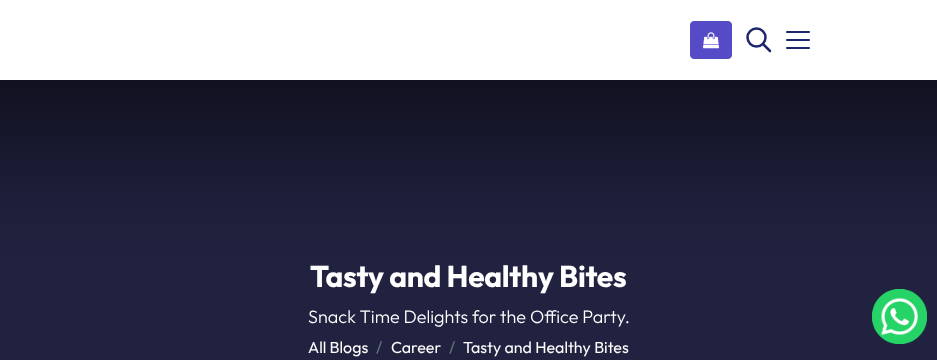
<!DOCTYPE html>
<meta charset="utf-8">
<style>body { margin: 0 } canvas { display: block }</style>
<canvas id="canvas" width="937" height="360"></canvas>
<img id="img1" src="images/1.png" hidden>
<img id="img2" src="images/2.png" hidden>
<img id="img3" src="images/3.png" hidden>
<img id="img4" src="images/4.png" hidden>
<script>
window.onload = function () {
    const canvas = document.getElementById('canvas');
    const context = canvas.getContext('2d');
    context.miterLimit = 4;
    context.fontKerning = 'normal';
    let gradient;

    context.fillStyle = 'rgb(255, 255, 255)';
    context.fillRect(0, 0, 937, 360);
    context.fillStyle = 'rgb(86, 75, 198)';
    context.beginPath();
    context.roundRect(690.5, 21.5, 41, 37, 3.5);
    context.fill();
    context.strokeStyle = 'rgb(86, 75, 198)';
    context.stroke();
    context.drawImage(document.getElementById('img1'), 703, 32, 16, 17);
    context.beginPath();
    context.arc(756.5, 37.5, 9, 0, 2 * Math.PI);
    context.strokeStyle = 'rgb(30, 38, 109)';
    context.lineWidth = 2.5;
    context.stroke();
    context.beginPath();
    context.moveTo(770, 51);
    context.lineTo(763, 44);
    context.lineCap = 'round';
    context.lineJoin = 'round';
    context.stroke();
    context.drawImage(document.getElementById('img2'), 786, 31, 24, 18);
    context.fillStyle = 'rgb(33, 34, 64)';
    context.fillRect(0, 278, 937, 82);
    gradient = context.createLinearGradient(469, 80, 469, 278);
    gradient.addColorStop(0, 'rgb(17, 17, 32)');
    gradient.addColorStop(0.19, 'rgb(21, 21, 40)');
    gradient.addColorStop(0.34, 'rgb(24, 25, 47)');
    gradient.addColorStop(0.47, 'rgb(27, 27, 52)');
    gradient.addColorStop(0.56, 'rgb(28, 29, 55)');
    gradient.addColorStop(0.65, 'rgb(30, 31, 58)');
    gradient.addColorStop(0.73, 'rgb(31, 32, 60)');
    gradient.addColorStop(0.8, 'rgb(32, 33, 61)');
    gradient.addColorStop(0.86, 'rgb(32, 33, 63)');
    gradient.addColorStop(0.91, 'rgb(33, 34, 63)');
    gradient.addColorStop(0.95, 'rgb(33, 34, 64)');
    gradient.addColorStop(1, 'rgb(33, 34, 64)');
    context.fillStyle = gradient;
    context.fillRect(0, 80, 937, 198);
    context.drawImage(document.getElementById('img3'), 872, 289, 55, 55);
    context.drawImage(document.getElementById('img4'), 872, 289, 55, 55);
    context.letterSpacing = '-0.3px';
    context.font = 'bold 30px Outfit';
    context.fillStyle = 'rgb(255, 255, 255)';
    context.fillText('Tasty and Healthy Bites', 310, 287);
    context.letterSpacing = '0px';
    context.font = '300 18px Outfit';
    context.fillText('Snack Time Delights for the Office Party.', 308, 323);
    context.font = '16px Outfit';
    context.fillText('All Blogs', 308, 353);
    context.fillStyle = 'rgb(108, 117, 125)';
    context.fillText('/', 376, 353);
    context.fillStyle = 'rgb(255, 255, 255)';
    context.fillText('Career', 391, 353);
    context.fillStyle = 'rgb(108, 117, 125)';
    context.fillText('/', 449, 353);
    context.fillStyle = 'rgb(255, 255, 255)';
    context.fillText('Tasty and Healthy Bites', 463, 353);
};
</script>
